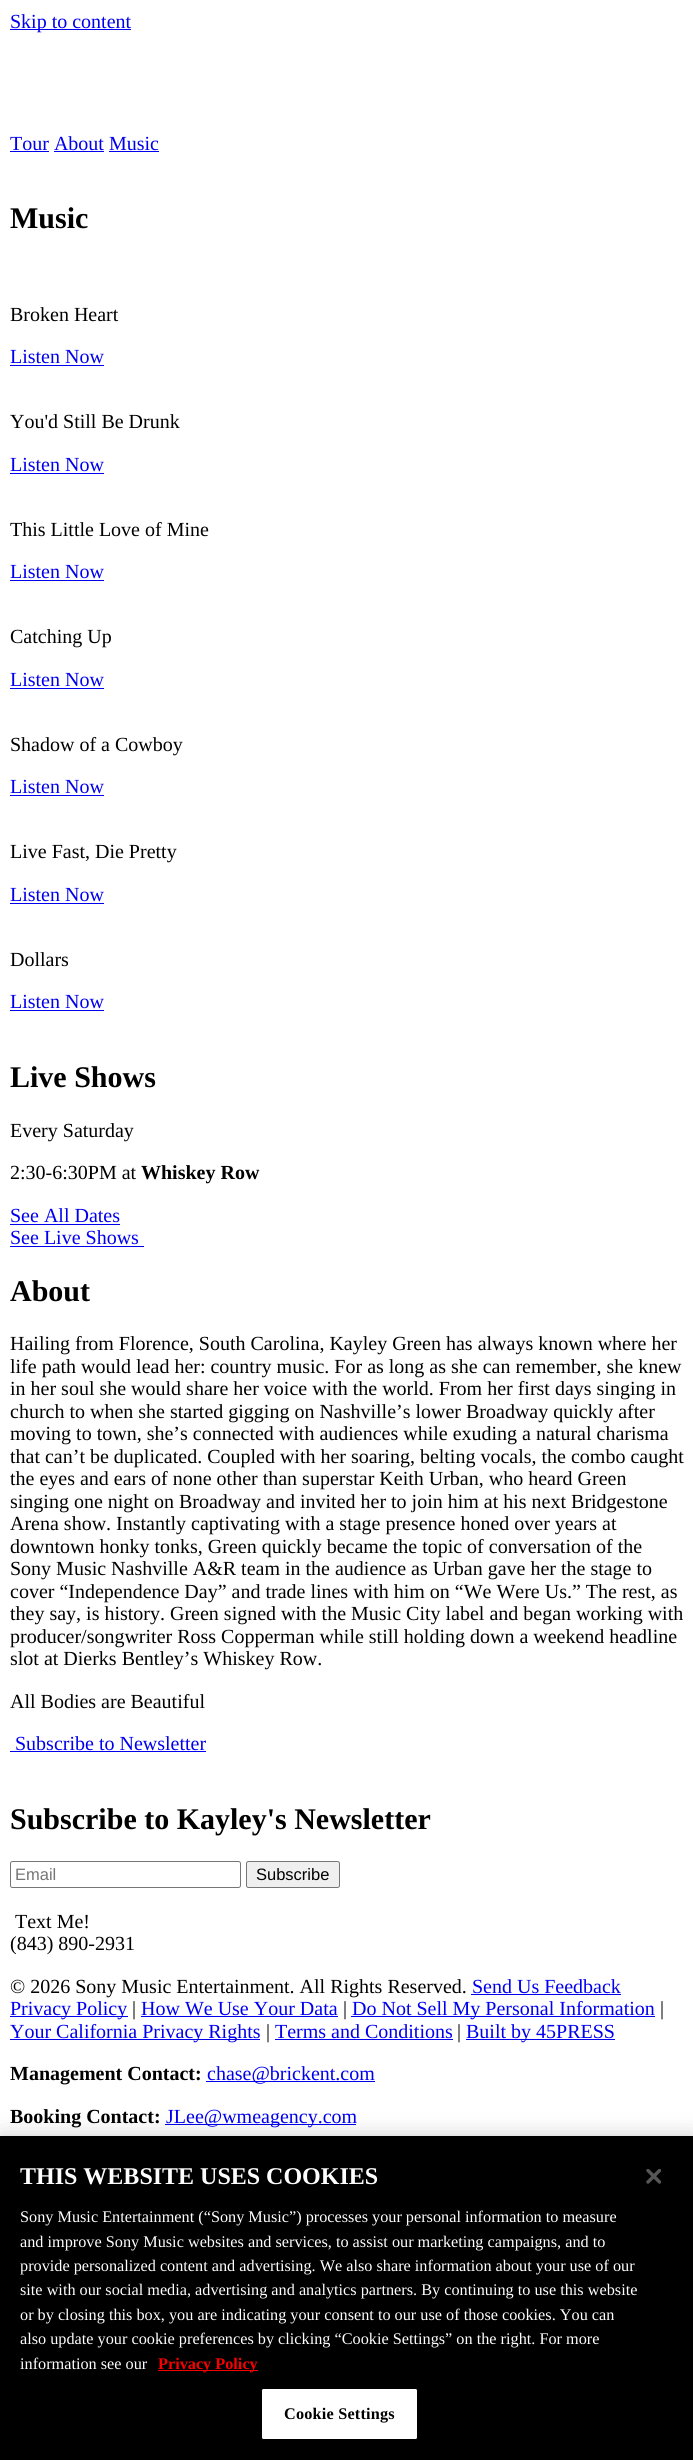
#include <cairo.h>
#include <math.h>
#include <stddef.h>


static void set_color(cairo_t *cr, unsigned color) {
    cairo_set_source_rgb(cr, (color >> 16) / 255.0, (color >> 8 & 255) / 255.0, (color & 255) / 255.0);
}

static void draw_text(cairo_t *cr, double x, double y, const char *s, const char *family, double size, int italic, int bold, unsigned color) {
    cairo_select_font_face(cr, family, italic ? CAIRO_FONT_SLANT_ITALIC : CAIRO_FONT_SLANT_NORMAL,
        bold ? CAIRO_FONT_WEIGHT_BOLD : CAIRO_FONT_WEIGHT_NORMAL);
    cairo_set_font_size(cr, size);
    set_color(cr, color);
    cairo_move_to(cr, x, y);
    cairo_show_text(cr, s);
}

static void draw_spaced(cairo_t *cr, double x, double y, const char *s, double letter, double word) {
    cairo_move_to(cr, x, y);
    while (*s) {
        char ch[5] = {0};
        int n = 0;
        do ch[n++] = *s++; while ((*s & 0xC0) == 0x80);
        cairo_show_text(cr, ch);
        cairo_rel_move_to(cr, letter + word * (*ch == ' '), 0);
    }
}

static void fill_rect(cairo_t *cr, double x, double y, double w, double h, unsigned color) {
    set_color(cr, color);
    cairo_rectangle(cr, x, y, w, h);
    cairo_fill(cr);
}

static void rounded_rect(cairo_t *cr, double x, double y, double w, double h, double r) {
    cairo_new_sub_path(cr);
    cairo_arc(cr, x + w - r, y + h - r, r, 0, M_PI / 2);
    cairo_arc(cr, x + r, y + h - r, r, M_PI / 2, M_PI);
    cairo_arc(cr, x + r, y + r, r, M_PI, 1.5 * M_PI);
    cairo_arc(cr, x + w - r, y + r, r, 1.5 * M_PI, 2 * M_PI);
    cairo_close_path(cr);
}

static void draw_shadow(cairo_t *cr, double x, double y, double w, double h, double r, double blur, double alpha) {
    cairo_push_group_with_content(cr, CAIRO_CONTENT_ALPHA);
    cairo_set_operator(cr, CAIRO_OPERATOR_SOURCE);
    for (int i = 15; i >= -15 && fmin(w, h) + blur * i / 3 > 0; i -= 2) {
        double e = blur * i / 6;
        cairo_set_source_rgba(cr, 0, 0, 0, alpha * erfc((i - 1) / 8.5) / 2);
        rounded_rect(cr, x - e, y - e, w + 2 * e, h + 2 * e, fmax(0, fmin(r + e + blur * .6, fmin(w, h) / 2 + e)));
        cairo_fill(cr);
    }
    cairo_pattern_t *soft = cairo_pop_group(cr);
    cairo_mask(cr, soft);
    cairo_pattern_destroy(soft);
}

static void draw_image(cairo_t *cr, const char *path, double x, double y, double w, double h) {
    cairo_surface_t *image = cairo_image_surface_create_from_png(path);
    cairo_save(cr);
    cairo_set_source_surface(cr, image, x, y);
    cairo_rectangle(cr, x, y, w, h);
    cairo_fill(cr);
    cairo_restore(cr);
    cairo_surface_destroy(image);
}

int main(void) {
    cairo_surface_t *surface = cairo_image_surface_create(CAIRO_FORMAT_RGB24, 693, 2460);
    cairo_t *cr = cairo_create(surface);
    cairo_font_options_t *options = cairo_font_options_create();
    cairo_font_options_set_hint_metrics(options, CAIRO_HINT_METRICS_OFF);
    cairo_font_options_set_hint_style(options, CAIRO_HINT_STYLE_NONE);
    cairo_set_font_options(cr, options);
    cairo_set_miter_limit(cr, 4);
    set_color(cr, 0xFFFFFF);
    cairo_paint(cr);
    fill_rect(cr, 10, 29, 121, 1, 0x0000EE);
    draw_text(cr, 10, 28, "Skip to content", "Liberation Serif", 20, 0, 0, 0x0000EE);
    draw_text(cr, 10, 150, "Tour About Music", "Liberation Serif", 20, 0, 0, 0x0000EE);
    fill_rect(cr, 10, 151, 39, 1, 0x0000EE);
    fill_rect(cr, 54, 151, 50, 1, 0x0000EE);
    fill_rect(cr, 109, 151, 50, 1, 0x0000EE);
    draw_text(cr, 10, 228, "Music", "Liberation Serif", 30, 0, 1, 0x000000);
    draw_text(cr, 10, 321, "Broken Heart", "Liberation Serif", 20, 0, 0, 0x000000);
    draw_text(cr, 10, 363, "Listen Now", "Liberation Serif", 20, 0, 0, 0x0000EE);
    fill_rect(cr, 10, 365, 94, 1, 0x0000EE);
    draw_text(cr, 10, 428, "You'd Still Be Drunk", "Liberation Serif", 20, 0, 0, 0x000000);
    draw_text(cr, 10, 471, "Listen Now", "Liberation Serif", 20, 0, 0, 0x0000EE);
    fill_rect(cr, 10, 473, 94, 1, 0x0000EE);
    draw_text(cr, 10, 536, "This Little Love of Mine", "Liberation Serif", 20, 0, 0, 0x000000);
    draw_text(cr, 10, 578, "Listen Now", "Liberation Serif", 20, 0, 0, 0x0000EE);
    fill_rect(cr, 10, 580, 94, 1, 0x0000EE);
    draw_text(cr, 10, 643, "Catching Up", "Liberation Serif", 20, 0, 0, 0x000000);
    draw_text(cr, 10, 686, "Listen Now", "Liberation Serif", 20, 0, 0, 0x0000EE);
    fill_rect(cr, 10, 688, 94, 1, 0x0000EE);
    draw_text(cr, 10, 751, "Shadow of a Cowboy", "Liberation Serif", 20, 0, 0, 0x000000);
    draw_text(cr, 10, 793, "Listen Now", "Liberation Serif", 20, 0, 0, 0x0000EE);
    fill_rect(cr, 10, 795, 94, 1, 0x0000EE);
    draw_text(cr, 10, 858, "Live Fast, Die Pretty", "Liberation Serif", 20, 0, 0, 0x000000);
    draw_text(cr, 10, 901, "Listen Now", "Liberation Serif", 20, 0, 0, 0x0000EE);
    fill_rect(cr, 10, 903, 94, 1, 0x0000EE);
    draw_text(cr, 10, 966, "Dollars", "Liberation Serif", 20, 0, 0, 0x000000);
    draw_text(cr, 10, 1008, "Listen Now", "Liberation Serif", 20, 0, 0, 0x0000EE);
    fill_rect(cr, 10, 1010, 94, 1, 0x0000EE);
    draw_text(cr, 10, 1087, "Live Shows", "Liberation Serif", 30, 0, 1, 0x000000);
    draw_text(cr, 10, 1137, "Every Saturday", "Liberation Serif", 20, 0, 0, 0x000000);
    draw_text(cr, 10, 1179, "2:30-6:30PM at", "Liberation Serif", 20, 0, 0, 0x000000);
    draw_text(cr, 141, 1179, "Whiskey Row", "Liberation Serif", 20, 0, 1, 0x000000);
    draw_text(cr, 10, 1222, "See All Dates", "Liberation Serif", 20, 0, 0, 0x0000EE);
    fill_rect(cr, 10, 1224, 110, 1, 0x0000EE);
    draw_text(cr, 10, 1244, "See Live Shows", "Liberation Serif", 20, 0, 0, 0x0000EE);
    fill_rect(cr, 10, 1246, 134, 1, 0x0000EE);
    draw_text(cr, 10, 1301, "About", "Liberation Serif", 30, 0, 1, 0x000000);
    draw_text(cr, 10, 1350, "Hailing from Florence, South Carolina, Kayley Green has always known where her", "Liberation Serif", 20, 0, 0, 0x000000);
    draw_text(cr, 10, 1373, "life path would lead her: country music. For as long as she can remember, she knew", "Liberation Serif", 20, 0, 0, 0x000000);
    draw_text(cr, 10, 1395, "in her soul she would share her voice with the world. From her first days singing in", "Liberation Serif", 20, 0, 0, 0x000000);
    draw_text(cr, 10, 1418, "church to when she started gigging on Nashville’s lower Broadway quickly after", "Liberation Serif", 20, 0, 0, 0x000000);
    draw_text(cr, 10, 1440, "moving to town, she’s connected with audiences while exuding a natural charisma", "Liberation Serif", 20, 0, 0, 0x000000);
    draw_text(cr, 10, 1463, "that can’t be duplicated. Coupled with her soaring, belting vocals, the combo caught", "Liberation Serif", 20, 0, 0, 0x000000);
    draw_text(cr, 10, 1485, "the eyes and ears of none other than superstar Keith Urban, who heard Green", "Liberation Serif", 20, 0, 0, 0x000000);
    draw_text(cr, 10, 1508, "singing one night on Broadway and invited her to join him at his next Bridgestone", "Liberation Serif", 20, 0, 0, 0x000000);
    draw_text(cr, 10, 1530, "Arena show. Instantly captivating with a stage presence honed over years at", "Liberation Serif", 20, 0, 0, 0x000000);
    draw_text(cr, 10, 1553, "downtown honky tonks, Green quickly became the topic of conversation of the", "Liberation Serif", 20, 0, 0, 0x000000);
    draw_text(cr, 10, 1575, "Sony Music Nashville A&R team in the audience as Urban gave her the stage to", "Liberation Serif", 20, 0, 0, 0x000000);
    draw_text(cr, 10, 1598, "cover “Independence Day” and trade lines with him on “We Were Us.” The rest, as", "Liberation Serif", 20, 0, 0, 0x000000);
    draw_text(cr, 10, 1620, "they say, is history. Green signed with the Music City label and began working with", "Liberation Serif", 20, 0, 0, 0x000000);
    draw_text(cr, 10, 1643, "producer/songwriter Ross Copperman while still holding down a weekend headline", "Liberation Serif", 20, 0, 0, 0x000000);
    draw_text(cr, 10, 1665, "slot at Dierks Bentley’s Whiskey Row.", "Liberation Serif", 20, 0, 0, 0x000000);
    draw_text(cr, 10, 1708, "All Bodies are Beautiful", "Liberation Serif", 20, 0, 0, 0x000000);
    draw_text(cr, 15, 1750, "Subscribe to Newsletter", "Liberation Serif", 20, 0, 0, 0x0000EE);
    fill_rect(cr, 10, 1751, 196, 1, 0x0000EE);
    draw_text(cr, 10, 1829, "Subscribe to Kayley's Newsletter", "Liberation Serif", 30, 0, 1, 0x000000);
    rounded_rect(cr, 10.5, 1861.5, 230, 26, 2);
    set_color(cr, 0x767676);
    cairo_set_line_width(cr, 1);
    cairo_stroke(cr);
    draw_text(cr, 15, 1880, "Email", "Liberation Sans", 16.5, 0, 0, 0x757575);
    set_color(cr, 0xEFEFEF);
    rounded_rect(cr, 246.5, 1861.5, 93, 26, 2);
    cairo_fill_preserve(cr);
    set_color(cr, 0x767676);
    cairo_stroke(cr);
    draw_text(cr, 256, 1880, "Subscribe", "Liberation Sans", 16.5, 0, 0, 0x000000);
    draw_text(cr, 15, 1928, "Text Me!", "Liberation Serif", 20, 0, 0, 0x000000);
    draw_text(cr, 10, 1950, "(843) 890-2931", "Liberation Serif", 20, 0, 0, 0x000000);
    draw_text(cr, 10, 1993, "© 2026 Sony Music Entertainment. All Rights Reserved.", "Liberation Serif", 20, 0, 0, 0x000000);
    draw_text(cr, 472, 1993, "Send Us Feedback", "Liberation Serif", 20, 0, 0, 0x0000EE);
    fill_rect(cr, 471, 1994, 150, 1, 0x0000EE);
    fill_rect(cr, 10, 2016, 118, 1, 0x0000EE);
    draw_text(cr, 10, 2015, "Privacy Policy", "Liberation Serif", 20, 0, 0, 0x0000EE);
    draw_text(cr, 132, 2015, "|", "Liberation Serif", 20, 0, 0, 0x000000);
    draw_text(cr, 141, 2015, "How We Use Your Data", "Liberation Serif", 20, 0, 0, 0x0000EE);
    fill_rect(cr, 141, 2016, 197, 1, 0x0000EE);
    draw_text(cr, 343, 2015, "|", "Liberation Serif", 20, 0, 0, 0x000000);
    fill_rect(cr, 351, 2016, 304, 1, 0x0000EE);
    draw_text(cr, 352, 2015, "Do Not Sell My Personal Information", "Liberation Serif", 20, 0, 0, 0x0000EE);
    draw_text(cr, 660, 2015, "|", "Liberation Serif", 20, 0, 0, 0x000000);
    fill_rect(cr, 10, 2039, 250, 1, 0x0000EE);
    draw_text(cr, 10, 2038, "Your California Privacy Rights", "Liberation Serif", 20, 0, 0, 0x0000EE);
    draw_text(cr, 266, 2038, "|", "Liberation Serif", 20, 0, 0, 0x000000);
    draw_text(cr, 275, 2038, "Terms and Conditions", "Liberation Serif", 20, 0, 0, 0x0000EE);
    fill_rect(cr, 275, 2039, 178, 1, 0x0000EE);
    draw_text(cr, 457, 2038, "|", "Liberation Serif", 20, 0, 0, 0x000000);
    fill_rect(cr, 466, 2039, 149, 1, 0x0000EE);
    draw_text(cr, 466, 2038, "Built by 45PRESS", "Liberation Serif", 20, 0, 0, 0x0000EE);
    draw_text(cr, 10, 2080, "Management Contact:", "Liberation Serif", 20, 0, 1, 0x000000);
    fill_rect(cr, 206, 2081, 169, 1, 0x0000EE);
    draw_text(cr, 207, 2080, "chase@brickent.com", "Liberation Serif", 20, 0, 0, 0x0000EE);
    draw_text(cr, 10, 2123, "Booking Contact:", "Liberation Serif", 20, 0, 1, 0x000000);
    fill_rect(cr, 165, 2124, 191, 1, 0x0000EE);
    draw_text(cr, 166, 2123, "JLee@wmeagency.com", "Liberation Serif", 20, 0, 0, 0x0000EE);
    set_color(cr, 0x000000);
    draw_shadow(cr, 0, 2136, 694, 324, 0, 11, 0.2);
    fill_rect(cr, 0, 2136, 693, 324, 0x000000);
    draw_text(cr, 20, 2184, "THIS WEBSITE USES COOKIES", "Liberation Serif", 24, 0, 1, 0xFFFFFF);
    draw_text(cr, 20, 2222, "Sony Music Entertainment (“Sony Music”) processes your personal information to measure", "Liberation Serif", 16.25, 0, 0, 0xFFFFFF);
    draw_text(cr, 20, 2247, "and improve Sony Music websites and services, to assist our marketing campaigns, and to", "Liberation Serif", 16.25, 0, 0, 0xFFFFFF);
    draw_text(cr, 20, 2271, "provide personalized content and advertising. We also share information about your use of our", "Liberation Serif", 16.25, 0, 0, 0xFFFFFF);
    draw_text(cr, 20, 2295, "site with our social media, advertising and analytics partners. By continuing to use this website", "Liberation Serif", 16.25, 0, 0, 0xFFFFFF);
    draw_text(cr, 20, 2320, "or by closing this box, you are indicating your consent to our use of those cookies. You can", "Liberation Serif", 16.25, 0, 0, 0xFFFFFF);
    draw_text(cr, 20, 2344, "also update your cookie preferences by clicking “Cookie Settings” on the right. For more", "Liberation Serif", 16.25, 0, 0, 0xFFFFFF);
    draw_text(cr, 20, 2369, "information see our", "Liberation Serif", 16.25, 0, 0, 0xFFFFFF);
    fill_rect(cr, 158, 2370, 100, 1, 0xF90000);
    draw_text(cr, 158, 2369, "Privacy Policy", "Liberation Serif", 16.25, 0, 1, 0xF90000);
    set_color(cr, 0xFFFFFF);
    rounded_rect(cr, 261.5, 2388.5, 156, 51, 2);
    cairo_fill_preserve(cr);
    set_color(cr, 0x000000);
    cairo_stroke(cr);
    draw_spaced(cr, 284, 2419, "Cookie Settings", 0.2, 0);
    draw_image(cr, "assets/img1.png", 646, 2169, 15, 15);
    cairo_surface_write_to_png(surface, "output.png");
    cairo_font_options_destroy(options);
    cairo_destroy(cr);
    cairo_surface_destroy(surface);
    return 0;
}
